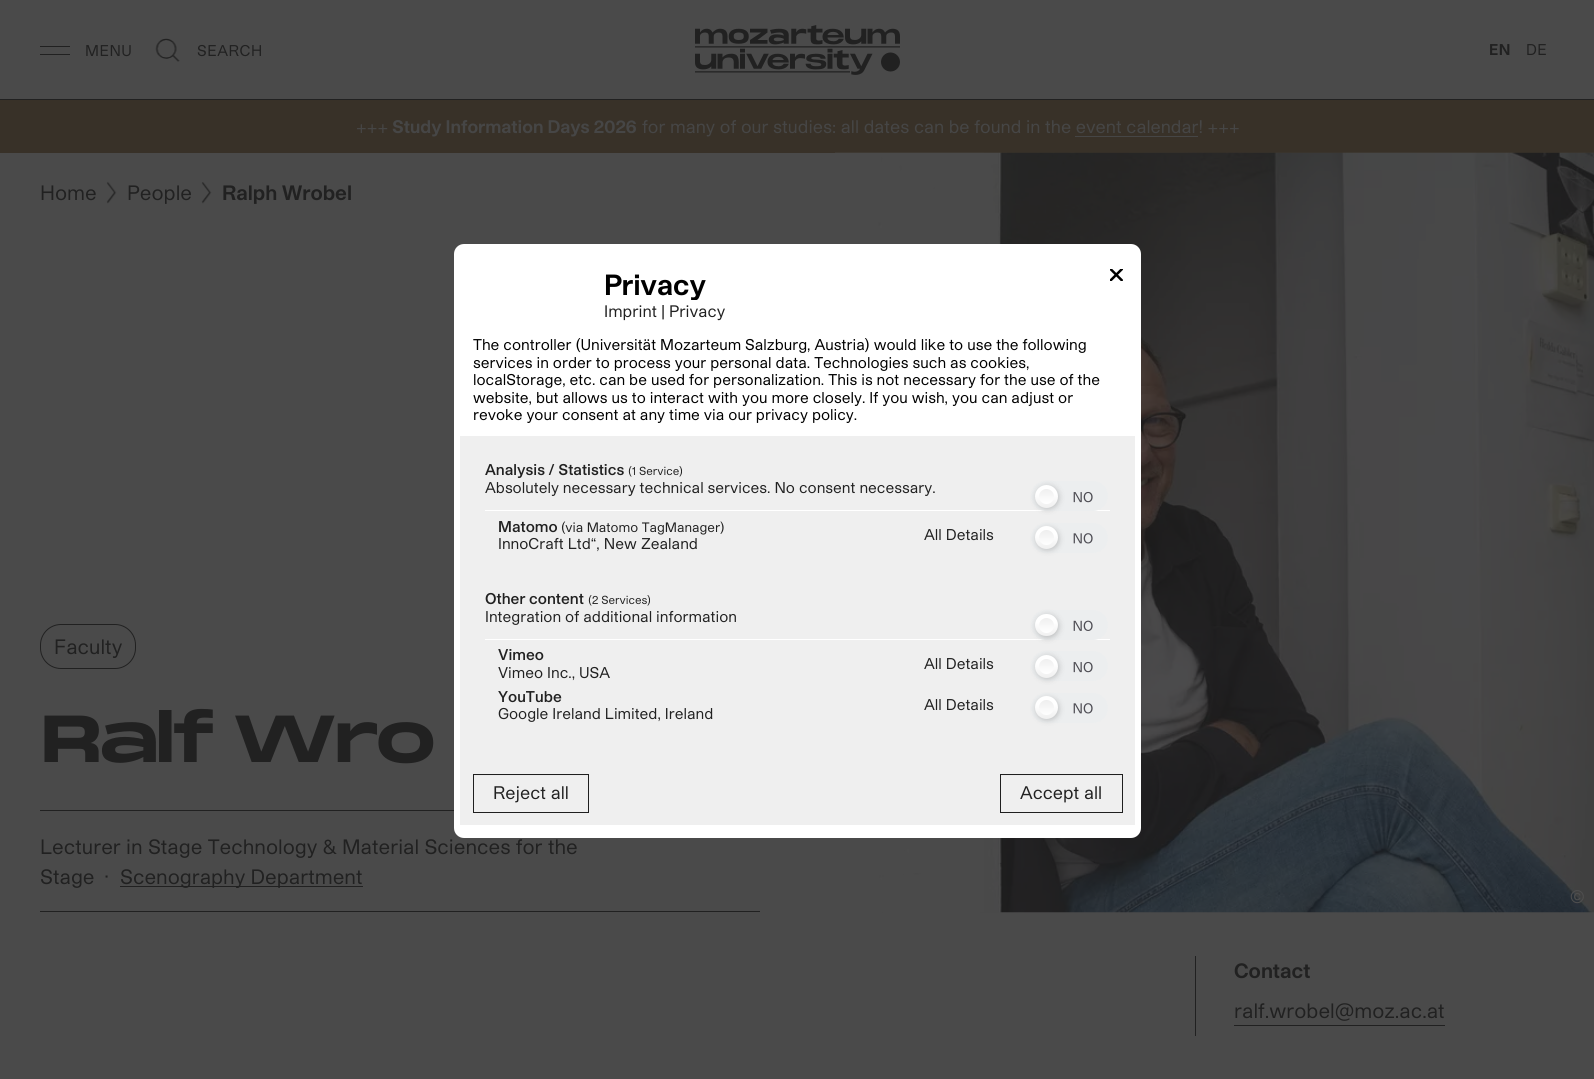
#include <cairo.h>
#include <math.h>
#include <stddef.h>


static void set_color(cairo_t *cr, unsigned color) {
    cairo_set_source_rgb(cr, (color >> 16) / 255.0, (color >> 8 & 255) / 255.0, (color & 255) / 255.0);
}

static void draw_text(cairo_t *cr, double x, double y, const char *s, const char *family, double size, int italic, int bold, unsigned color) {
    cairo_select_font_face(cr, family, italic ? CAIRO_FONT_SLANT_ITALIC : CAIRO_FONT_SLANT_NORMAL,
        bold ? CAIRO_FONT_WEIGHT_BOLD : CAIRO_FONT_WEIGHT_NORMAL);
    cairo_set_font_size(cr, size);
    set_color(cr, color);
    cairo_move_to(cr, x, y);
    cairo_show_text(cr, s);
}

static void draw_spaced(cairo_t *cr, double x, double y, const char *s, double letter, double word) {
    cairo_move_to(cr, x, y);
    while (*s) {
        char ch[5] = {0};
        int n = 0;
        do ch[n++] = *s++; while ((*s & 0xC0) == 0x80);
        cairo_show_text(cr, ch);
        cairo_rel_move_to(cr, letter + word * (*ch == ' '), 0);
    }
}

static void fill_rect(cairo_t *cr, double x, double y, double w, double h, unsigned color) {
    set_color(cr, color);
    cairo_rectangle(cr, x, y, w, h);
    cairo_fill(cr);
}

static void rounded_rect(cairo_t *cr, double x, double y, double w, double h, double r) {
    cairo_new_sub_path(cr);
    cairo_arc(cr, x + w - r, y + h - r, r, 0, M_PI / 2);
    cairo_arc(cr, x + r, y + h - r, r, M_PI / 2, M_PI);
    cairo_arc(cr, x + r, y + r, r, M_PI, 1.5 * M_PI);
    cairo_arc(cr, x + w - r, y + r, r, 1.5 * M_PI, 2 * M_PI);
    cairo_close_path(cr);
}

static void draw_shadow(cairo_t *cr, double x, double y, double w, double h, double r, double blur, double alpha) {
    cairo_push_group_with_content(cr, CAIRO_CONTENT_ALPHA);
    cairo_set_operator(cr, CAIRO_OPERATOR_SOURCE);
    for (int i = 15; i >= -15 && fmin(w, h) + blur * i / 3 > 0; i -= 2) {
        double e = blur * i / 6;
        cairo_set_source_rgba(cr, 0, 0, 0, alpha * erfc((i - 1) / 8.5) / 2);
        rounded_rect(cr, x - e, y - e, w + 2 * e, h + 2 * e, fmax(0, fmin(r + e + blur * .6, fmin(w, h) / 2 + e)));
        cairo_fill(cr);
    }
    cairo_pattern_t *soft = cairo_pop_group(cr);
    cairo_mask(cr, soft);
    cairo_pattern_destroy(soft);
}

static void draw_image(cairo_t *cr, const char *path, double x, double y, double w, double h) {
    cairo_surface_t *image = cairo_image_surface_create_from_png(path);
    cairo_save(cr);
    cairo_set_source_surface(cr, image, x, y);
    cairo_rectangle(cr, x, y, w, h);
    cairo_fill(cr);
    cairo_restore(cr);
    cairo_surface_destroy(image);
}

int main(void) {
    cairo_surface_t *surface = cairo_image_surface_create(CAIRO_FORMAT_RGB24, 1594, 1079);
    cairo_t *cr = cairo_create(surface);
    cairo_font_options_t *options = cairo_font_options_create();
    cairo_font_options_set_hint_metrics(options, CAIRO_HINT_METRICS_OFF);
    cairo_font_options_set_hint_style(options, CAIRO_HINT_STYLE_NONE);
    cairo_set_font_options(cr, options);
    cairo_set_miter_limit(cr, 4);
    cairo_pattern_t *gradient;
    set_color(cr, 0x4A4A4A);
    cairo_paint(cr);
    fill_rect(cr, 0, 99, 1594, 1, 0x212121);
    fill_rect(cr, 40, 46, 30, 1, 0x212121);
    fill_rect(cr, 40, 54, 30, 1, 0x212121);
    cairo_select_font_face(cr, "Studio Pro", CAIRO_FONT_SLANT_NORMAL, CAIRO_FONT_WEIGHT_NORMAL);
    cairo_set_font_size(cr, 15);
    draw_spaced(cr, 85, 56, "MENU", 0.5, 0);
    draw_image(cr, "assets/img1.png", 155, 38, 25, 24);
    draw_spaced(cr, 197, 56, "SEARCH", 0.5, 0);
    draw_image(cr, "assets/img2.png", 695, 25, 205, 50);
    cairo_select_font_face(cr, "Studio Pro", CAIRO_FONT_SLANT_NORMAL, CAIRO_FONT_WEIGHT_BOLD);
    draw_spaced(cr, 1489, 55, "EN", 0.5, 0);
    cairo_select_font_face(cr, "Studio Pro", CAIRO_FONT_SLANT_NORMAL, CAIRO_FONT_WEIGHT_NORMAL);
    draw_spaced(cr, 1526, 55, "DE", 0.5, 0);
    fill_rect(cr, 0, 100, 1594, 53, 0x383128);
    draw_text(cr, 356, 133, "+++", "Studio Pro", 17.5, 0, 0, 0x464646);
    draw_text(cr, 392, 133, "Study Information Days 2026", "Studio Pro", 17.5, 0, 1, 0x464646);
    draw_text(cr, 642, 133, "for many of our studies: all dates can be found in the event calendar! +++", "Studio Pro", 17.5, 0, 0, 0x464646);
    fill_rect(cr, 1075, 136, 123, 1, 0x464646);
    draw_text(cr, 40, 200, "Home", "Studio Pro", 20, 0, 0, 0x212121);
    draw_image(cr, "assets/img3.png", 106, 181, 11, 23);
    draw_text(cr, 127, 200, "People", "Studio Pro", 20, 0, 0, 0x212121);
    draw_image(cr, "assets/img4.png", 201, 182, 11, 22);
    draw_text(cr, 222, 200, "Ralph Wrobel", "Studio Pro", 20, 0, 1, 0x212121);
    rounded_rect(cr, 40.5, 624.5, 95, 44, 20.5);
    cairo_set_line_width(cr, 1);
    cairo_stroke(cr);
    draw_text(cr, 54, 654, "Faculty", "Studio Pro", 20, 0, 0, 0x212121);
    cairo_select_font_face(cr, "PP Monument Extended", CAIRO_FONT_SLANT_NORMAL, CAIRO_FONT_WEIGHT_BOLD);
    cairo_set_font_size(cr, 65);
    draw_spaced(cr, 40, 762, "Ralf Wro", -5.25, 0);
    fill_rect(cr, 40, 810, 414, 1, 0x212121);
    fill_rect(cr, 40, 911, 720, 1, 0x212121);
    draw_text(cr, 40, 854, "Lecturer in Stage Technology & Material Sciences for the", "Studio Pro", 20, 0, 0, 0x212121);
    draw_text(cr, 40, 884, "Stage", "Studio Pro", 20, 0, 0, 0x212121);
    draw_text(cr, 104, 884, "⋅", "Studio Pro", 20, 0, 0, 0x212121);
    fill_rect(cr, 120, 886, 243, 1, 0x212121);
    draw_text(cr, 120, 884, "Scenography Department", "Studio Pro", 20, 0, 0, 0x212121);
    draw_image(cr, "assets/img5.png", 835, 152, 759, 1);
    draw_image(cr, "assets/img6.png", 835, 152, 759, 761);
    cairo_select_font_face(cr, "Studio Pro SemiBold", CAIRO_FONT_SLANT_NORMAL, CAIRO_FONT_WEIGHT_NORMAL);
    cairo_set_font_size(cr, 17.5);
    set_color(cr, 0x4E4E4E);
    draw_spaced(cr, 1570, 903, "©", 1, 0);
    fill_rect(cr, 1195, 956, 1, 80, 0x212121);
    draw_text(cr, 1234, 978, "Contact", "Studio Pro", 20, 0, 1, 0x212121);
    fill_rect(cr, 1234, 1025, 211, 1, 0x212121);
    draw_text(cr, 1234, 1018, "ralf.wrobel@moz.ac.at", "Studio Pro", 20, 0, 0, 0x212121);
    set_color(cr, 0xFFFFFF);
    rounded_rect(cr, 454, 244, 687, 594, 10);
    cairo_fill(cr);
    cairo_save(cr);
    cairo_rectangle(cr, 604, 269, 102, 31);
    cairo_clip(cr);
    draw_text(cr, 604, 295, "Privacy", "Studio Pro", 28, 0, 1, 0x000000);
    cairo_restore(cr);
    cairo_save(cr);
    cairo_rectangle(cr, 1110, 269, 13, 12);
    cairo_clip(cr);
    cairo_new_path(cr);
    cairo_move_to(cr, 1110, 268.5);
    cairo_line_to(cr, 1122.5, 281);
    cairo_move_to(cr, 1110, 281);
    cairo_line_to(cr, 1122.5, 268.5);
    set_color(cr, 0x000000);
    cairo_set_line_width(cr, 2.5);
    cairo_stroke(cr);
    cairo_restore(cr);
    draw_text(cr, 604, 317, "Imprint", "Studio Pro", 16, 0, 0, 0x212121);
    draw_text(cr, 661, 317, "|", "Studio Pro", 16, 0, 0, 0x212121);
    draw_text(cr, 669, 317, "Privacy", "Studio Pro", 16, 0, 0, 0x212121);
    draw_text(cr, 473, 350, "The controller (Universität Mozarteum Salzburg, Austria) would like to use the following", "Studio Pro", 15, 0, 0, 0x000000);
    draw_text(cr, 473, 368, "services in order to process your personal data. Technologies such as cookies,", "Studio Pro", 15, 0, 0, 0x000000);
    draw_text(cr, 473, 385, "localStorage, etc. can be used for personalization. This is not necessary for the use of the", "Studio Pro", 15, 0, 0, 0x000000);
    draw_text(cr, 473, 403, "website, but allows us to interact with you more closely. If you wish, you can adjust or", "Studio Pro", 15, 0, 0, 0x000000);
    draw_text(cr, 473, 420, "revoke your consent at any time via our privacy policy.", "Studio Pro", 15, 0, 0, 0x000000);
    fill_rect(cr, 460, 436, 675, 389, 0xEFEFEF);
    draw_text(cr, 485, 475, "Analysis / Statistics", "Studio Pro SemiBold", 15, 0, 0, 0x212121);
    draw_text(cr, 628, 475, "(1 Service)", "Studio Pro", 11.25, 0, 0, 0x212121);
    draw_text(cr, 485, 493, "Absolutely necessary technical services. No consent necessary.", "Studio Pro", 15, 0, 0, 0x212121);
    fill_rect(cr, 485, 510, 625, 1, 0xFFFFFF);
    set_color(cr, 0xECEEEF);
    rounded_rect(cr, 1031, 481, 77, 30, 15);
    cairo_fill(cr);
    set_color(cr, 0x000000);
    draw_shadow(cr, 1036, 486, 23, 23, 11.5, 3, 0.2);
    gradient = cairo_pattern_create_linear(1046, 485, 1046, 507);
    cairo_pattern_add_color_stop_rgba(gradient, 0.4, 1, 1, 1, 1);
    cairo_pattern_add_color_stop_rgba(gradient, 1, 0.941, 0.941, 0.941, 1);
    cairo_set_source(cr, gradient);
    cairo_pattern_destroy(gradient);
    cairo_arc(cr, 1046.5, 496.5, 11.5, 0, 2 * M_PI);
    cairo_fill(cr);
    gradient = cairo_pattern_create_linear(1046, 488, 1046, 503);
    cairo_pattern_add_color_stop_rgba(gradient, 0, 0.933, 0.933, 0.933, 1);
    cairo_pattern_add_color_stop_rgba(gradient, 1, 1, 1, 1, 1);
    cairo_set_source(cr, gradient);
    cairo_pattern_destroy(gradient);
    cairo_arc(cr, 1046.5, 496.5, 7.5, 0, 2 * M_PI);
    cairo_fill(cr);
    draw_image(cr, "assets/img7.png", 1073, 491, 20, 12);
    draw_text(cr, 498, 532, "Matomo", "Studio Pro SemiBold", 15, 0, 0, 0x212121);
    draw_text(cr, 561, 532, "(via Matomo TagManager)", "Studio Pro", 13.1, 0, 0, 0x212121);
    draw_text(cr, 498, 549, "InnoCraft Ltd“, New Zealand", "Studio Pro", 15, 0, 0, 0x212121);
    draw_text(cr, 924, 540, "All Details", "Studio Pro", 15, 0, 0, 0x212121);
    set_color(cr, 0xECEEEF);
    rounded_rect(cr, 1031, 523, 77, 30, 15);
    cairo_fill(cr);
    set_color(cr, 0x000000);
    draw_shadow(cr, 1036, 528, 23, 22, 11, 3, 0.2);
    gradient = cairo_pattern_create_linear(1046, 526, 1046, 548);
    cairo_pattern_add_color_stop_rgba(gradient, 0.4, 1, 1, 1, 1);
    cairo_pattern_add_color_stop_rgba(gradient, 1, 0.941, 0.941, 0.941, 1);
    cairo_set_source(cr, gradient);
    cairo_pattern_destroy(gradient);
    cairo_arc(cr, 1046.5, 537.5, 11.5, 0, 2 * M_PI);
    cairo_fill(cr);
    gradient = cairo_pattern_create_linear(1046, 530, 1046, 545);
    cairo_pattern_add_color_stop_rgba(gradient, 0, 0.933, 0.933, 0.933, 1);
    cairo_pattern_add_color_stop_rgba(gradient, 1, 1, 1, 1, 1);
    cairo_set_source(cr, gradient);
    cairo_pattern_destroy(gradient);
    cairo_arc(cr, 1046.5, 537.5, 7.5, 0, 2 * M_PI);
    cairo_fill(cr);
    draw_image(cr, "assets/img8.png", 1073, 533, 20, 11);
    draw_text(cr, 485, 604, "Other content", "Studio Pro SemiBold", 15, 0, 0, 0x212121);
    draw_text(cr, 588, 604, "(2 Services)", "Studio Pro", 11.25, 0, 0, 0x212121);
    draw_text(cr, 485, 622, "Integration of additional information", "Studio Pro", 15, 0, 0, 0x212121);
    fill_rect(cr, 485, 639, 625, 1, 0xFFFFFF);
    set_color(cr, 0xECEEEF);
    rounded_rect(cr, 1031, 610, 77, 30, 15);
    cairo_fill(cr);
    set_color(cr, 0x000000);
    draw_shadow(cr, 1036, 615, 23, 23, 11.5, 3, 0.2);
    gradient = cairo_pattern_create_linear(1046, 613, 1046, 636);
    cairo_pattern_add_color_stop_rgba(gradient, 0.4, 1, 1, 1, 1);
    cairo_pattern_add_color_stop_rgba(gradient, 1, 0.941, 0.941, 0.941, 1);
    cairo_set_source(cr, gradient);
    cairo_pattern_destroy(gradient);
    rounded_rect(cr, 1035, 614, 23, 22, 11);
    cairo_fill(cr);
    gradient = cairo_pattern_create_linear(1046, 617, 1046, 632);
    cairo_pattern_add_color_stop_rgba(gradient, 0, 0.933, 0.933, 0.933, 1);
    cairo_pattern_add_color_stop_rgba(gradient, 1, 1, 1, 1, 1);
    cairo_set_source(cr, gradient);
    cairo_pattern_destroy(gradient);
    cairo_arc(cr, 1046.5, 625.5, 7.5, 0, 2 * M_PI);
    cairo_fill(cr);
    draw_image(cr, "assets/img9.png", 1073, 620, 20, 11);
    draw_text(cr, 498, 660, "Vimeo", "Studio Pro SemiBold", 15, 0, 0, 0x212121);
    draw_text(cr, 498, 678, "Vimeo Inc., USA", "Studio Pro", 15, 0, 0, 0x212121);
    draw_text(cr, 924, 669, "All Details", "Studio Pro", 15, 0, 0, 0x212121);
    set_color(cr, 0xECEEEF);
    rounded_rect(cr, 1031, 651, 77, 30, 15);
    cairo_fill(cr);
    set_color(cr, 0x000000);
    draw_shadow(cr, 1036, 656, 23, 23, 11.5, 3, 0.2);
    gradient = cairo_pattern_create_linear(1046, 655, 1046, 677);
    cairo_pattern_add_color_stop_rgba(gradient, 0.4, 1, 1, 1, 1);
    cairo_pattern_add_color_stop_rgba(gradient, 1, 0.941, 0.941, 0.941, 1);
    cairo_set_source(cr, gradient);
    cairo_pattern_destroy(gradient);
    cairo_arc(cr, 1046.5, 666.5, 11.5, 0, 2 * M_PI);
    cairo_fill(cr);
    gradient = cairo_pattern_create_linear(1046, 658, 1046, 673);
    cairo_pattern_add_color_stop_rgba(gradient, 0, 0.933, 0.933, 0.933, 1);
    cairo_pattern_add_color_stop_rgba(gradient, 1, 1, 1, 1, 1);
    cairo_set_source(cr, gradient);
    cairo_pattern_destroy(gradient);
    cairo_arc(cr, 1046.5, 666.5, 7.5, 0, 2 * M_PI);
    cairo_fill(cr);
    draw_image(cr, "assets/img7.png", 1073, 661, 20, 12);
    draw_text(cr, 498, 702, "YouTube", "Studio Pro SemiBold", 15, 0, 0, 0x212121);
    draw_text(cr, 498, 719, "Google Ireland Limited, Ireland", "Studio Pro", 15, 0, 0, 0x212121);
    draw_text(cr, 924, 710, "All Details", "Studio Pro", 15, 0, 0, 0x212121);
    set_color(cr, 0xECEEEF);
    rounded_rect(cr, 1031, 693, 77, 30, 15);
    cairo_fill(cr);
    set_color(cr, 0x000000);
    draw_shadow(cr, 1036, 698, 23, 22, 11, 3, 0.2);
    gradient = cairo_pattern_create_linear(1046, 696, 1046, 718);
    cairo_pattern_add_color_stop_rgba(gradient, 0.4, 1, 1, 1, 1);
    cairo_pattern_add_color_stop_rgba(gradient, 1, 0.941, 0.941, 0.941, 1);
    cairo_set_source(cr, gradient);
    cairo_pattern_destroy(gradient);
    cairo_arc(cr, 1046.5, 707.5, 11.5, 0, 2 * M_PI);
    cairo_fill(cr);
    gradient = cairo_pattern_create_linear(1046, 700, 1046, 715);
    cairo_pattern_add_color_stop_rgba(gradient, 0, 0.933, 0.933, 0.933, 1);
    cairo_pattern_add_color_stop_rgba(gradient, 1, 1, 1, 1, 1);
    cairo_set_source(cr, gradient);
    cairo_pattern_destroy(gradient);
    cairo_arc(cr, 1046.5, 707.5, 7.5, 0, 2 * M_PI);
    cairo_fill(cr);
    draw_image(cr, "assets/img8.png", 1073, 703, 20, 11);
    fill_rect(cr, 474, 775, 114, 1, 0xEAEAEA);
    cairo_rectangle(cr, 473.5, 774.5, 115, 38);
    set_color(cr, 0x1F1F1F);
    cairo_stroke(cr);
    draw_text(cr, 493, 799, "Reject all", "Studio Pro", 17.5, 0, 0, 0x212121);
    fill_rect(cr, 1001, 775, 120, 1, 0xEAEAEA);
    cairo_rectangle(cr, 1000.5, 774.5, 122, 38);
    set_color(cr, 0x1F1F1F);
    cairo_stroke(cr);
    draw_text(cr, 1020, 799, "Accept all", "Studio Pro", 17.5, 0, 0, 0x212121);
    cairo_surface_write_to_png(surface, "output.png");
    cairo_font_options_destroy(options);
    cairo_destroy(cr);
    cairo_surface_destroy(surface);
    return 0;
}
